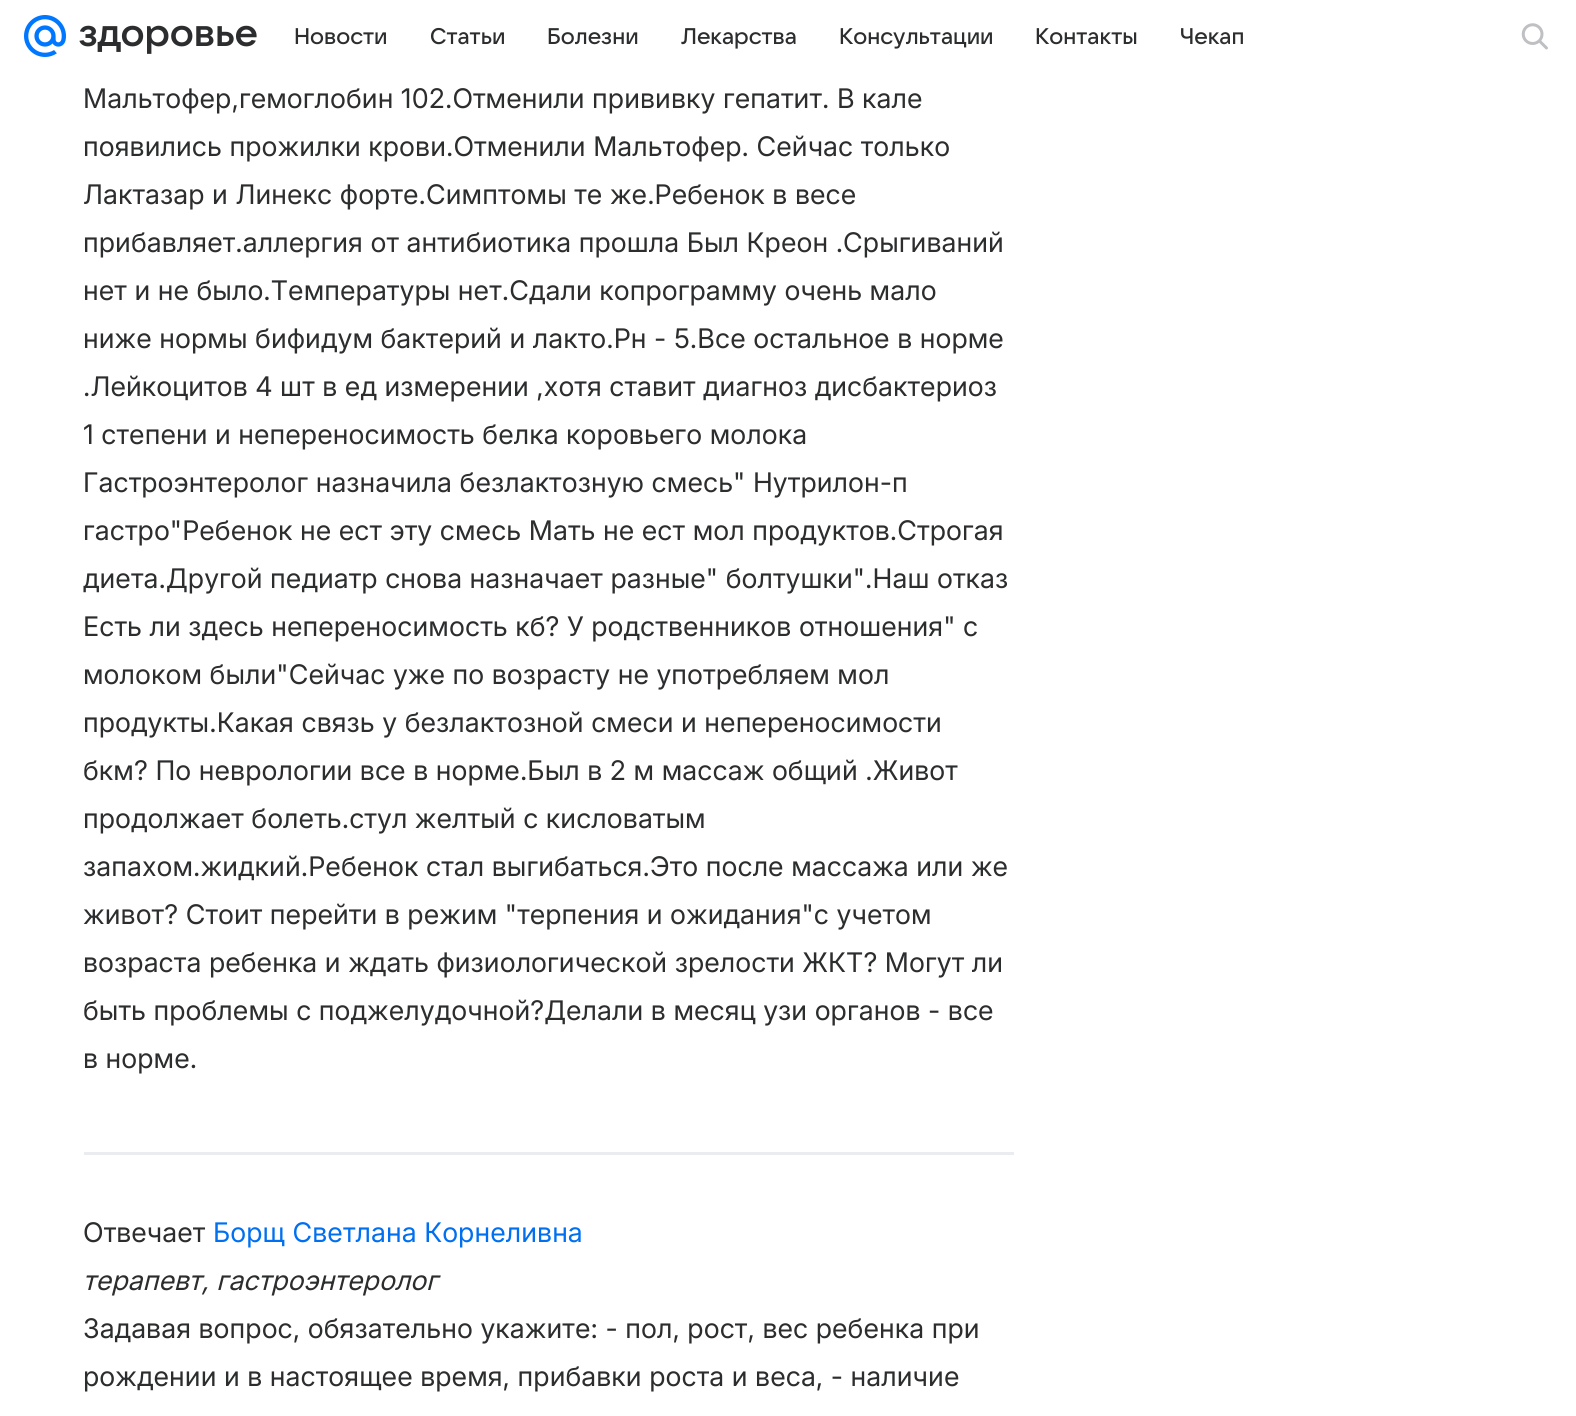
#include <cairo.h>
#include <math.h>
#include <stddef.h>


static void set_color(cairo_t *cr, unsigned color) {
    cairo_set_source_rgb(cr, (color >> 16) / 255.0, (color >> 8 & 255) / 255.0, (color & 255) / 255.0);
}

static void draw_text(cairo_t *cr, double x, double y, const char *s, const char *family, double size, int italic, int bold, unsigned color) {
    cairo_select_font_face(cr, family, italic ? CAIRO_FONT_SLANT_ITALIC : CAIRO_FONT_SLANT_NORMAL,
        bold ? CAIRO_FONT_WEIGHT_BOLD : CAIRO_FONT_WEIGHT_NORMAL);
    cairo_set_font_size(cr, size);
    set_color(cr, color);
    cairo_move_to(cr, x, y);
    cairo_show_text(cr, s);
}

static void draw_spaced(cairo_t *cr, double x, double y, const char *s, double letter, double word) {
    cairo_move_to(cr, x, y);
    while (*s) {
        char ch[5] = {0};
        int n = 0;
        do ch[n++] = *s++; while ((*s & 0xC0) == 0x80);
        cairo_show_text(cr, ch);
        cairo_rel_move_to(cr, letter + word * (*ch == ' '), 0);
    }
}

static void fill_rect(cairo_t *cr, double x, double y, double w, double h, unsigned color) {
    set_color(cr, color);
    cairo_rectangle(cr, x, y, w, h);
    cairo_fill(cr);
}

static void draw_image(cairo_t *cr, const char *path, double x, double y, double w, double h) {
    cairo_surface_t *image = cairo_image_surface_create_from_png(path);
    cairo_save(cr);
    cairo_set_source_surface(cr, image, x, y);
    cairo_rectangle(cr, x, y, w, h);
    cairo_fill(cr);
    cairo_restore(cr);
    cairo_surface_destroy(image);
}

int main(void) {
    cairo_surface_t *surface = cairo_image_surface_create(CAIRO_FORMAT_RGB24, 1576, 1416);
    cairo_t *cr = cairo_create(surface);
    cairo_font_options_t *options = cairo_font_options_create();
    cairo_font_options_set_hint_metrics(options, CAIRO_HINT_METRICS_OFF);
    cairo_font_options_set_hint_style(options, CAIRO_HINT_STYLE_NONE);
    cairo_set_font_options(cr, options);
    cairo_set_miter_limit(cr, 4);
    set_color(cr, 0xFFFFFF);
    cairo_paint(cr);
    draw_image(cr, "assets/img1.png", 24, 15, 42, 42);
    draw_image(cr, "assets/img2.png", 79, 25, 178, 29);
    draw_text(cr, 294, 44, "Новости", "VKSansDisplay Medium", 22.5, 0, 0, 0x2C2D2E);
    draw_text(cr, 430, 44, "Статьи", "VKSansDisplay Medium", 22.5, 0, 0, 0x2C2D2E);
    draw_text(cr, 547, 44, "Болезни", "VKSansDisplay Medium", 22.5, 0, 0, 0x2C2D2E);
    draw_text(cr, 681, 44, "Лекарства", "VKSansDisplay Medium", 22.5, 0, 0, 0x2C2D2E);
    draw_text(cr, 839, 44, "Консультации", "VKSansDisplay Medium", 22.5, 0, 0, 0x2C2D2E);
    draw_text(cr, 1035, 44, "Контакты", "VKSansDisplay Medium", 22.5, 0, 0, 0x2C2D2E);
    draw_text(cr, 1180, 44, "Чекап", "VKSansDisplay Medium", 22.5, 0, 0, 0x2C2D2E);
    draw_image(cr, "assets/img3.png", 1521, 23, 27, 27);
    cairo_select_font_face(cr, "Inter", CAIRO_FONT_SLANT_NORMAL, CAIRO_FONT_WEIGHT_NORMAL);
    cairo_set_font_size(cr, 27);
    draw_spaced(cr, 83, 108, "Мальтофер,гемоглобин 102.Отменили прививку гепатит. В кале", 0.08, 0);
    draw_spaced(cr, 83, 156, "появились прожилки крови.Отменили Мальтофер. Сейчас только", 0.08, 0);
    draw_spaced(cr, 83, 204, "Лактазар и Линекс форте.Симптомы те же.Ребенок в весе", 0.08, 0);
    draw_spaced(cr, 83, 252, "прибавляет.аллергия от антибиотика прошла Был Креон .Срыгиваний", 0.08, 0);
    draw_spaced(cr, 83, 300, "нет и не было.Температуры нет.Сдали копрограмму очень мало", 0.08, 0);
    draw_spaced(cr, 83, 348, "ниже нормы бифидум бактерий и лакто.Рн - 5.Все остальное в норме", 0.08, 0);
    draw_spaced(cr, 83, 396, ".Лейкоцитов 4 шт в ед измерении ,хотя ставит диагноз дисбактериоз", 0.08, 0);
    draw_spaced(cr, 83, 444, "1 степени и непереносимость белка коровьего молока", 0.08, 0);
    draw_spaced(cr, 83, 492, "Гастроэнтеролог назначила безлактозную смесь\" Нутрилон-п", 0.08, 0);
    draw_spaced(cr, 83, 540, "гастро\"Ребенок не ест эту смесь Мать не ест мол продуктов.Строгая", 0.08, 0);
    draw_spaced(cr, 83, 588, "диета.Другой педиатр снова назначает разные\" болтушки\".Наш отказ", 0.08, 0);
    draw_spaced(cr, 83, 636, "Есть ли здесь непереносимость кб? У родственников отношения\" с", 0.08, 0);
    draw_spaced(cr, 83, 684, "молоком были\"Сейчас уже по возрасту не употребляем мол", 0.08, 0);
    draw_spaced(cr, 83, 732, "продукты.Какая связь у безлактозной смеси и непереносимости", 0.08, 0);
    draw_spaced(cr, 83, 780, "бкм? По неврологии все в норме.Был в 2 м массаж общий .Живот", 0.08, 0);
    draw_spaced(cr, 83, 828, "продолжает болеть.стул желтый с кисловатым", 0.08, 0);
    draw_spaced(cr, 83, 876, "запахом.жидкий.Ребенок стал выгибаться.Это после массажа или же", 0.08, 0);
    draw_spaced(cr, 83, 924, "живот? Стоит перейти в режим \"терпения и ожидания\"с учетом", 0.08, 0);
    draw_spaced(cr, 83, 972, "возраста ребенка и ждать физиологической зрелости ЖКТ? Могут ли", 0.08, 0);
    draw_spaced(cr, 83, 1020, "быть проблемы с поджелудочной?Делали в месяц узи органов - все", 0.08, 0);
    draw_spaced(cr, 83, 1068, "в норме.", 0.08, 0);
    fill_rect(cr, 84, 1152, 930, 3, 0xEBECEF);
    set_color(cr, 0x2C2D2E);
    draw_spaced(cr, 83, 1242, "Отвечает", 0.08, 0);
    set_color(cr, 0x0070F0);
    draw_spaced(cr, 213, 1242, "Борщ Светлана Корнеливна", 0.08, 0);
    cairo_select_font_face(cr, "Inter", CAIRO_FONT_SLANT_ITALIC, CAIRO_FONT_WEIGHT_NORMAL);
    set_color(cr, 0x2C2D2E);
    draw_spaced(cr, 83, 1290, "терапевт, гастроэнтеролог", 0.08, 0);
    cairo_select_font_face(cr, "Inter", CAIRO_FONT_SLANT_NORMAL, CAIRO_FONT_WEIGHT_NORMAL);
    draw_spaced(cr, 83, 1338, "Задавая вопрос, обязательно укажите: - пол, рост, вес ребенка при", 0.08, 0);
    draw_spaced(cr, 83, 1386, "рождении и в настоящее время, прибавки роста и веса, - наличие", 0.08, 0);
    cairo_surface_write_to_png(surface, "output.png");
    cairo_font_options_destroy(options);
    cairo_destroy(cr);
    cairo_surface_destroy(surface);
    return 0;
}
